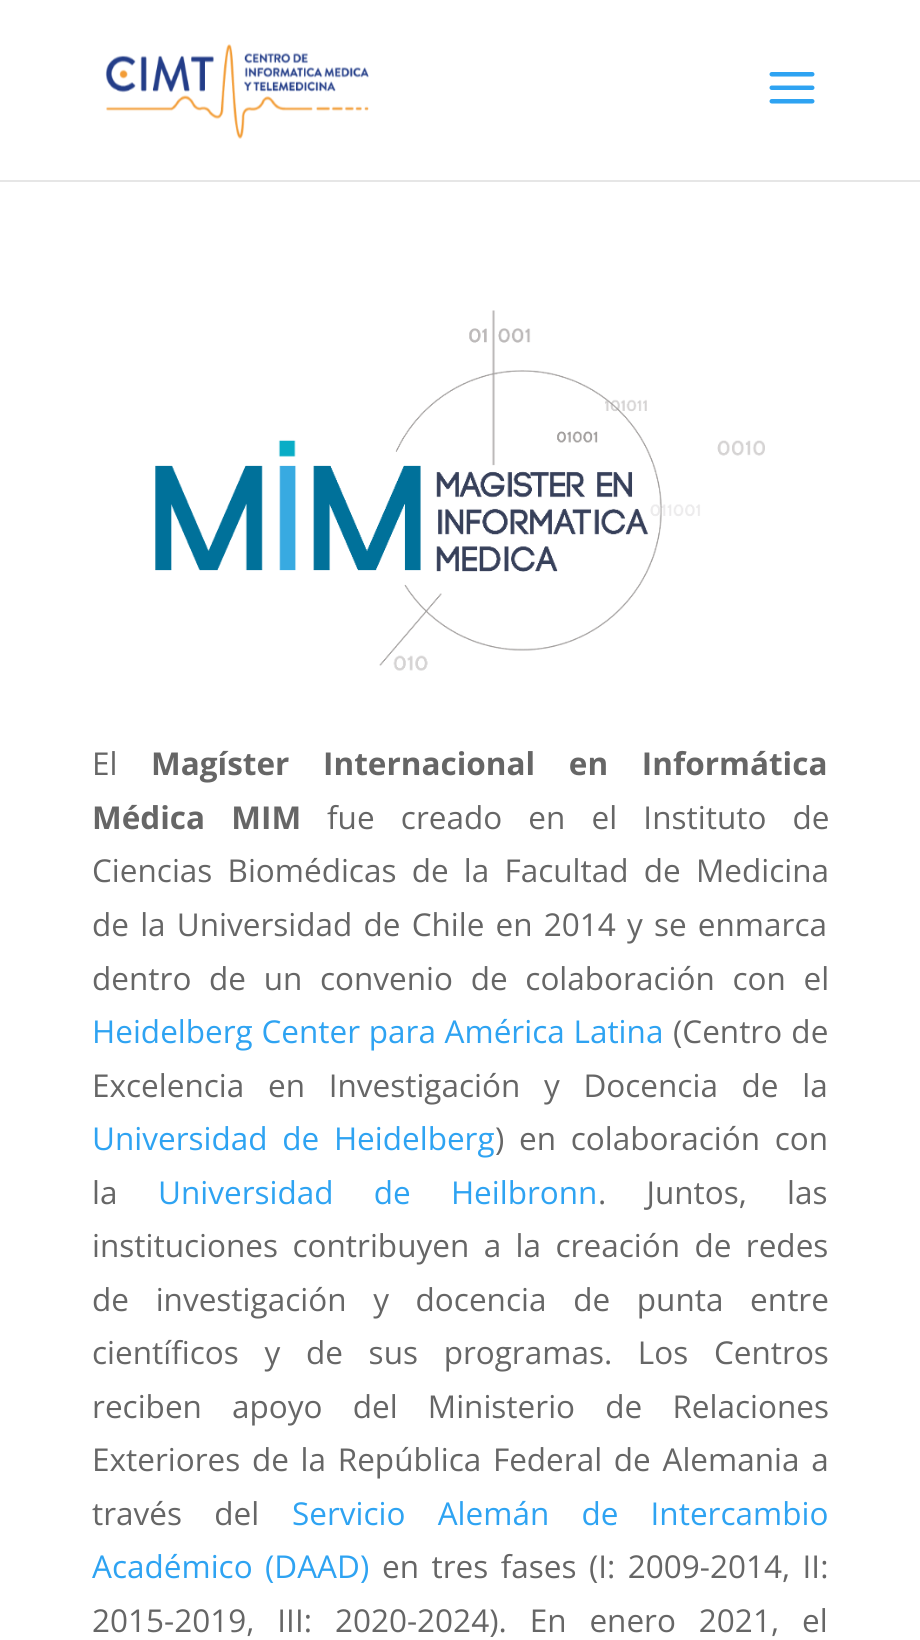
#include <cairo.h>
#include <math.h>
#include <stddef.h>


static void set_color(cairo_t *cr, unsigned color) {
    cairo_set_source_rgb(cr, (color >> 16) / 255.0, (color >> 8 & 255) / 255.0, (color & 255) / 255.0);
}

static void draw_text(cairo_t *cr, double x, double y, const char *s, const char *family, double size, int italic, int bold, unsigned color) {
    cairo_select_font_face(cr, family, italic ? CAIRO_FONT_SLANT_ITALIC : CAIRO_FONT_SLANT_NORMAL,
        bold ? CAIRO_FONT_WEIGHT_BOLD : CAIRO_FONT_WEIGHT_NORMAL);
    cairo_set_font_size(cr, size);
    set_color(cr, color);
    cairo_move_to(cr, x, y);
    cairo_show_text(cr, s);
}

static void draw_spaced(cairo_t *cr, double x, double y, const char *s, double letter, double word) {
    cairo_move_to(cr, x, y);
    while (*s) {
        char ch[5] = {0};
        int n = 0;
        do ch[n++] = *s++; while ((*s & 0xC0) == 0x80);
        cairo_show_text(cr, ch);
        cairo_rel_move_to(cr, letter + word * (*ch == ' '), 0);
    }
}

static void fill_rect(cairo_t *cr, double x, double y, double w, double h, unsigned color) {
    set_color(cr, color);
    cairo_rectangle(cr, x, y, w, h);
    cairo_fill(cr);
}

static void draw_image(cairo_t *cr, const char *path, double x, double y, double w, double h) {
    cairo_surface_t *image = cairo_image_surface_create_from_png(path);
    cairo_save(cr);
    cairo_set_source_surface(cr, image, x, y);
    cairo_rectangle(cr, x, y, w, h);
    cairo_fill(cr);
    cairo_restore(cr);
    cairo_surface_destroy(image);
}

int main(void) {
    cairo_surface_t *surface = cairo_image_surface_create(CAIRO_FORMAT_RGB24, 920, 1640);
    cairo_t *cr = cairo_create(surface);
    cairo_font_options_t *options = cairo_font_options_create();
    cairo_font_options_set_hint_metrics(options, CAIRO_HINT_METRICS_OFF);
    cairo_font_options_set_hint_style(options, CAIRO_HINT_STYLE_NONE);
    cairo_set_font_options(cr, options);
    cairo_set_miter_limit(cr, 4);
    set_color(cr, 0xFFFFFF);
    cairo_paint(cr);
    fill_rect(cr, 0, 180, 920, 2, 0xE6E6E6);
    draw_image(cr, "assets/img1.png", 105, 44, 264, 95);
    draw_image(cr, "assets/img2.png", 769, 72, 46, 32);
    draw_image(cr, "assets/img3.png", 155, 310, 610, 361);
    draw_text(cr, 92, 775, "El", "Open Sans", 31.5, 0, 0, 0x666666);
    cairo_select_font_face(cr, "Open Sans", CAIRO_FONT_SLANT_NORMAL, CAIRO_FONT_WEIGHT_BOLD);
    draw_spaced(cr, 151, 775, "Magíster Internacional en Informática", 0, 25.5);
    draw_spaced(cr, 92, 829, "Médica MIM", 0, 18);
    cairo_select_font_face(cr, "Open Sans", CAIRO_FONT_SLANT_NORMAL, CAIRO_FONT_WEIGHT_NORMAL);
    draw_spaced(cr, 327, 829, "fue creado en el Instituto de", 0, 18);
    draw_spaced(cr, 92, 882, "Ciencias Biomédicas de la Facultad de Medicina", 0, 7);
    draw_spaced(cr, 92, 936, "de la Universidad de Chile en 2014 y se enmarca", 0, 3);
    draw_spaced(cr, 92, 990, "dentro de un convenio de colaboración con el", 0, 9.5);
    set_color(cr, 0x2EA3F2);
    draw_spaced(cr, 92, 1043, "Heidelberg Center para América Latina", 0, 0.5);
    set_color(cr, 0x666666);
    draw_spaced(cr, 673, 1043, "(Centro de", 0, 1);
    draw_spaced(cr, 92, 1097, "Excelencia en Investigación y Docencia de la", 0, 15.5);
    set_color(cr, 0x2EA3F2);
    draw_spaced(cr, 92, 1150, "Universidad de Heidelberg", 0, 6.5);
    set_color(cr, 0x666666);
    draw_spaced(cr, 495, 1150, ") en colaboración con", 0, 6.5);
    draw_text(cr, 92, 1204, "la", "Open Sans", 31.5, 0, 0, 0x666666);
    set_color(cr, 0x2EA3F2);
    draw_spaced(cr, 158, 1204, "Universidad de Heilbronn", 0, 32);
    set_color(cr, 0x666666);
    draw_spaced(cr, 598, 1204, ". Juntos, las", 0, 32);
    draw_spaced(cr, 92, 1257, "instituciones contribuyen a la creación de redes", 0, 6.25);
    draw_spaced(cr, 92, 1311, "de investigación y docencia de punta entre", 0, 18.5);
    draw_spaced(cr, 92, 1364, "científicos y de sus programas. Los Centros", 0, 17.5);
    draw_spaced(cr, 92, 1418, "reciben apoyo del Ministerio de Relaciones", 0, 22);
    draw_spaced(cr, 92, 1471, "Exteriores de la República Federal de Alemania a", 0, 3.5);
    draw_spaced(cr, 92, 1525, "través del", 0, 24);
    set_color(cr, 0x2EA3F2);
    draw_spaced(cr, 292, 1525, "Servicio Alemán de Intercambio", 0, 24);
    draw_spaced(cr, 92, 1578, "Académico (DAAD)", 0, 4.25);
    set_color(cr, 0x666666);
    draw_spaced(cr, 382, 1578, "en tres fases (I: 2009-2014, II:", 0, 4.25);
    draw_spaced(cr, 92, 1632, "2015-2019, III: 2020-2024). En enero 2021, el", 0, 14.75);
    cairo_surface_write_to_png(surface, "output.png");
    cairo_font_options_destroy(options);
    cairo_destroy(cr);
    cairo_surface_destroy(surface);
    return 0;
}
